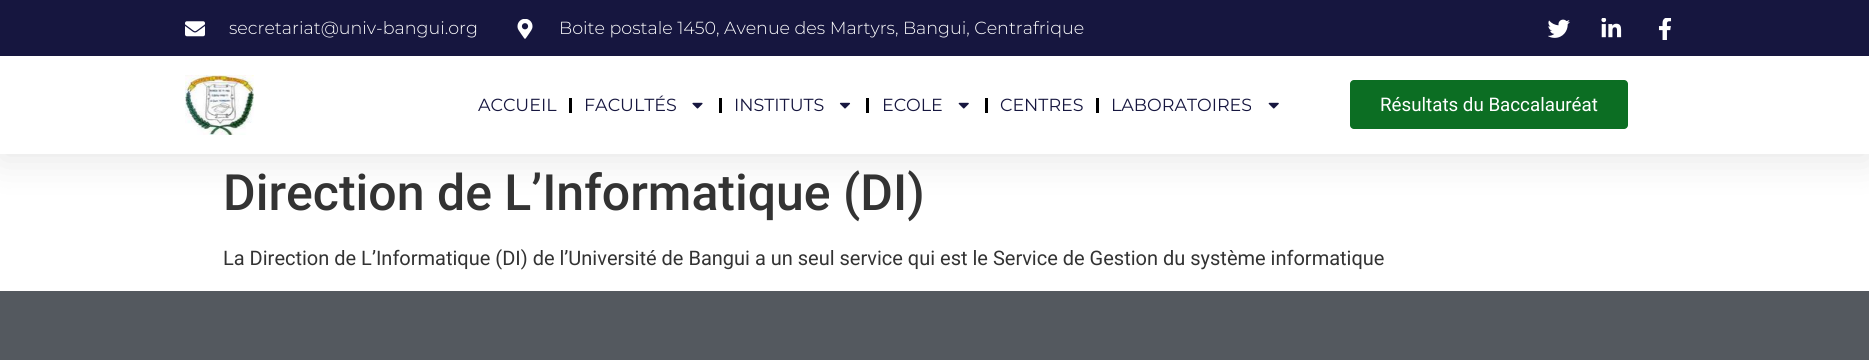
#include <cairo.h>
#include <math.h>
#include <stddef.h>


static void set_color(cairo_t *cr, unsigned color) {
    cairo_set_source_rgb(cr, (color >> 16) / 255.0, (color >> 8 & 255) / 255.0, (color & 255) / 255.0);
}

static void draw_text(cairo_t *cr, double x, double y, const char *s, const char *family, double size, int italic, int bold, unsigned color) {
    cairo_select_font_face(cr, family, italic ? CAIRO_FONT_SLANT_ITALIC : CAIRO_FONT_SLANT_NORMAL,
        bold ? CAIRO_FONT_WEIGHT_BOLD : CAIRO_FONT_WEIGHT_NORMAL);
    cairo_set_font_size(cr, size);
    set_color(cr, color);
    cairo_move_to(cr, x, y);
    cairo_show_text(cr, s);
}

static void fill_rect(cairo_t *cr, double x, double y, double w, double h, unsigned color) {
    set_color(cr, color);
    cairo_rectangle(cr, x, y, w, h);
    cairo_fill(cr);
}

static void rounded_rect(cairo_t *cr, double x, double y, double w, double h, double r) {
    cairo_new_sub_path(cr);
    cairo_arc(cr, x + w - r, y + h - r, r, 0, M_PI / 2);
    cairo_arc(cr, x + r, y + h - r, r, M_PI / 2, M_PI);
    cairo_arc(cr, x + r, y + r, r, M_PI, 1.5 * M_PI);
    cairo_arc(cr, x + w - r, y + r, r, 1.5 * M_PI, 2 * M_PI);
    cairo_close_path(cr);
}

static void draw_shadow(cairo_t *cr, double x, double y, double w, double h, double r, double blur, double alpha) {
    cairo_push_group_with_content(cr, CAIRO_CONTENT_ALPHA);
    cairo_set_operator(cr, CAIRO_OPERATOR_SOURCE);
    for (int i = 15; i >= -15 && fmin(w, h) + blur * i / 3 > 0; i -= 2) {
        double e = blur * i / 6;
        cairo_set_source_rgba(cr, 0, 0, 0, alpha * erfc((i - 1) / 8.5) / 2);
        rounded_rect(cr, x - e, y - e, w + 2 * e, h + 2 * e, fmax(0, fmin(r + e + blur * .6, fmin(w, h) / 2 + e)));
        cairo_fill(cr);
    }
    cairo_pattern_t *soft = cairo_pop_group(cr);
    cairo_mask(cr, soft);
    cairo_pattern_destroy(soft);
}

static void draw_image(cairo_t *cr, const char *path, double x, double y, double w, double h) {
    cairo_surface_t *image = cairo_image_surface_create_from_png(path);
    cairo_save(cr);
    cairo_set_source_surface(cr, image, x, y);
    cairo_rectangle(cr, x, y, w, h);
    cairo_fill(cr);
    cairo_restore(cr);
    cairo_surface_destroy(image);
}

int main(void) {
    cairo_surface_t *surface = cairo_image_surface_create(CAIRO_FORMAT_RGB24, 1869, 360);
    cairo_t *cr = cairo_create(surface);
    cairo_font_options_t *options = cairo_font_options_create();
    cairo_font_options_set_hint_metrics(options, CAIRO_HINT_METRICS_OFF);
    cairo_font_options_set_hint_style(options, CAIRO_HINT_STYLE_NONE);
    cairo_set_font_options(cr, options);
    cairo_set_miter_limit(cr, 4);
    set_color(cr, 0xFFFFFF);
    cairo_paint(cr);
    set_color(cr, 0x000000);
    draw_shadow(cr, 0, 6, 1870, 154, 0, 19, 0.1);
    fill_rect(cr, 0, 0, 1869, 56, 0x16163F);
    draw_image(cr, "assets/img1.png", 185, 21, 20, 16);
    draw_text(cr, 229, 34, "secretariat@univ-bangui.org", "Montserrat Light", 17.5, 0, 0, 0xFFFFFF);
    draw_image(cr, "assets/img2.png", 517, 19, 16, 20);
    draw_text(cr, 559, 34, "Boite postale 1450, Avenue des Martyrs, Bangui, Centrafrique", "Montserrat Light", 17.5, 0, 0, 0xFFFFFF);
    draw_image(cr, "assets/img3.png", 1548, 19, 22, 19);
    draw_image(cr, "assets/img4.png", 1601, 18, 21, 20);
    draw_image(cr, "assets/img5.png", 1658, 18, 14, 22);
    fill_rect(cr, 0, 56, 1869, 98, 0xFFFFFF);
    draw_image(cr, "assets/img6.png", 185, 75, 69, 60);
    draw_text(cr, 478, 111, "ACCUEIL", "Montserrat", 17.5, 0, 0, 0x16163F);
    fill_rect(cr, 569, 98, 3, 15, 0x000000);
    draw_text(cr, 584, 111, "FACULTÉS", "Montserrat", 17.5, 0, 0, 0x16163F);
    draw_image(cr, "assets/img7.png", 692, 102, 11, 7);
    fill_rect(cr, 719, 98, 3, 15, 0x000000);
    draw_text(cr, 734, 111, "INSTITUTS", "Montserrat", 17.5, 0, 0, 0x16163F);
    draw_image(cr, "assets/img8.png", 839, 102, 12, 7);
    fill_rect(cr, 866, 98, 3, 15, 0x000000);
    draw_text(cr, 882, 111, "ECOLE", "Montserrat", 17.5, 0, 0, 0x16163F);
    draw_image(cr, "assets/img9.png", 958, 102, 11, 7);
    fill_rect(cr, 985, 98, 3, 15, 0x000000);
    draw_text(cr, 1000, 111, "CENTRES", "Montserrat", 17.5, 0, 0, 0x16163F);
    fill_rect(cr, 1096, 98, 3, 15, 0x000000);
    draw_text(cr, 1111, 111, "LABORATOIRES", "Montserrat", 17.5, 0, 0, 0x16163F);
    draw_image(cr, "assets/img9.png", 1268, 102, 11, 7);
    set_color(cr, 0x0C6E23);
    rounded_rect(cr, 1350, 80, 278, 49, 4);
    cairo_fill(cr);
    draw_text(cr, 1380, 111, "Résultats du Baccalauréat", "Roboto", 18.75, 0, 0, 0xFFFFFF);
    draw_text(cr, 223, 210, "Direction de L’Informatique (DI)", "Roboto Medium", 50, 0, 0, 0x333333);
    draw_text(cr, 223, 265, "La Direction de L’Informatique (DI) de l’Université de Bangui a un seul service qui est le Service de Gestion du système informatique", "Roboto", 20, 0, 0, 0x333333);
    fill_rect(cr, 0, 291, 1869, 69, 0x54595F);
    cairo_surface_write_to_png(surface, "output.png");
    cairo_font_options_destroy(options);
    cairo_destroy(cr);
    cairo_surface_destroy(surface);
    return 0;
}
